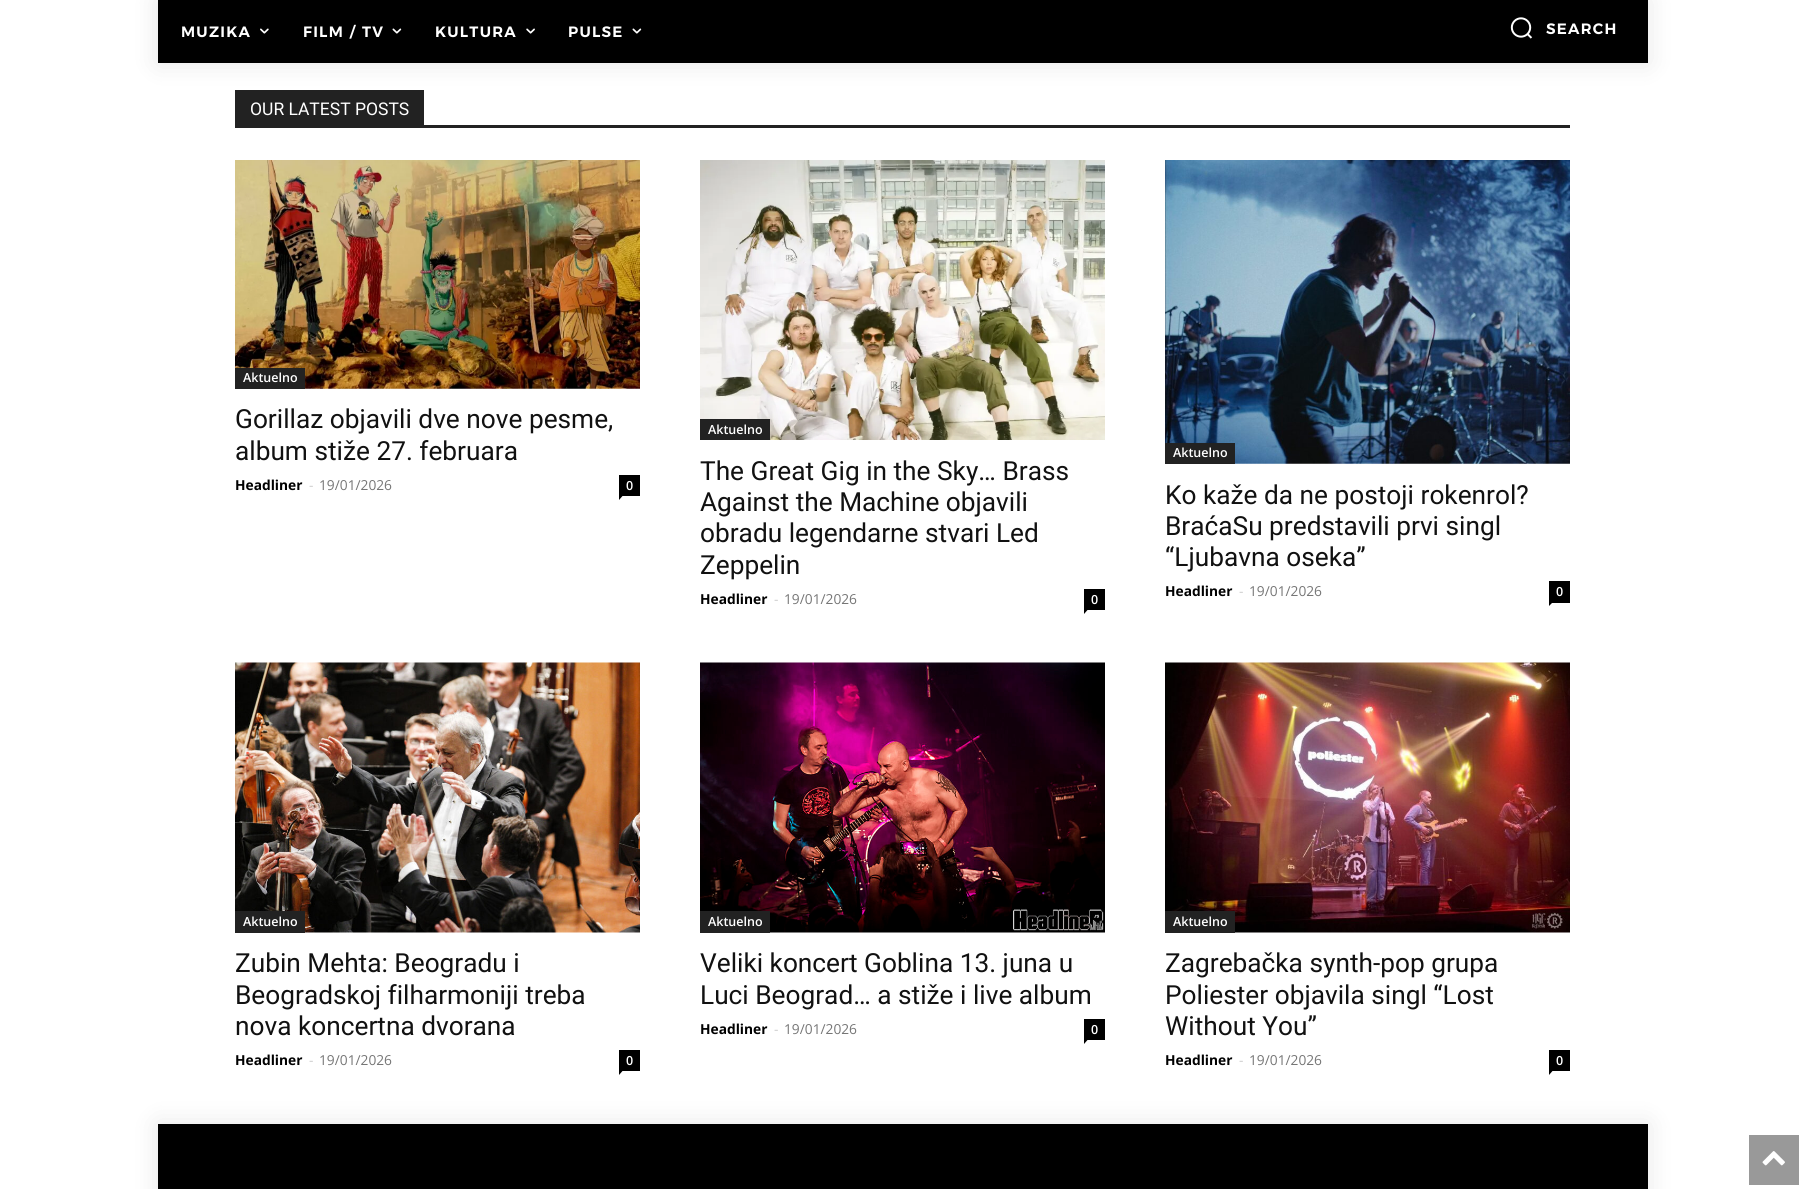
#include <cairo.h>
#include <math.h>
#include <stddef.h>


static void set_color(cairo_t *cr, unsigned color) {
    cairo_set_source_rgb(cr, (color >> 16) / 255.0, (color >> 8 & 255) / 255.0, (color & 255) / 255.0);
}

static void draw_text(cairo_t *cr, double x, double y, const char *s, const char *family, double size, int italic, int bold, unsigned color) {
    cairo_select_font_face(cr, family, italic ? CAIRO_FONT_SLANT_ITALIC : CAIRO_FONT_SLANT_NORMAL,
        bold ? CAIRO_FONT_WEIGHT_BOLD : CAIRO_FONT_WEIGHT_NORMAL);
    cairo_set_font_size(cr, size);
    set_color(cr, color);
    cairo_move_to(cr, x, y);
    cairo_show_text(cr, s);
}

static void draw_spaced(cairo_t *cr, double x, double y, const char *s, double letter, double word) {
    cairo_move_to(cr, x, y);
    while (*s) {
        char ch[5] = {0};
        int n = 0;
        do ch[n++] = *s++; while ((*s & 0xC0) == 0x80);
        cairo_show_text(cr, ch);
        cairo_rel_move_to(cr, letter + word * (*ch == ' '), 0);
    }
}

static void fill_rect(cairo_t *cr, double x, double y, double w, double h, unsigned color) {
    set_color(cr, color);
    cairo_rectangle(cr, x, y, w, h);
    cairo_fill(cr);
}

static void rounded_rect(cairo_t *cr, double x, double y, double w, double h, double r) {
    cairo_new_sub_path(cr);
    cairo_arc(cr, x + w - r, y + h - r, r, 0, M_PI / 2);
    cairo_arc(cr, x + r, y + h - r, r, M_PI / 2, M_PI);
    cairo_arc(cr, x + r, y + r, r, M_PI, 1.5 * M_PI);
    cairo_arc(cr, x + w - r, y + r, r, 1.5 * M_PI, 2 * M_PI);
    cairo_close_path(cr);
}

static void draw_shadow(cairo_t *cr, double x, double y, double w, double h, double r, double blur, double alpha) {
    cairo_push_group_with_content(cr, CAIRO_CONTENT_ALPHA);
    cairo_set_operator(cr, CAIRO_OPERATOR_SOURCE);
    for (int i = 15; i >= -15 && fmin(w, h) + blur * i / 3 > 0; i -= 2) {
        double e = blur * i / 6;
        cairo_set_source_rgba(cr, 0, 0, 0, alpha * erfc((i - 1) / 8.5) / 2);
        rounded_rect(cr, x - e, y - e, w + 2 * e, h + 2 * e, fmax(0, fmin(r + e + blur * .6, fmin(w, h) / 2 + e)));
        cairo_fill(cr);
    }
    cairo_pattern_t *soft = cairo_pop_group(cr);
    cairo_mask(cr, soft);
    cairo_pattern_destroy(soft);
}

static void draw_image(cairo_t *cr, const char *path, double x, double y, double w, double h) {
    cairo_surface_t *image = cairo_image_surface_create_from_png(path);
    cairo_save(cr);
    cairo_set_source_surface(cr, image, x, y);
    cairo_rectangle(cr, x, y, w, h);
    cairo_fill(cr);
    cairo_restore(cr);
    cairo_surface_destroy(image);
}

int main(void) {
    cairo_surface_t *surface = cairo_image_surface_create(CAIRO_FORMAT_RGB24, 1805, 1189);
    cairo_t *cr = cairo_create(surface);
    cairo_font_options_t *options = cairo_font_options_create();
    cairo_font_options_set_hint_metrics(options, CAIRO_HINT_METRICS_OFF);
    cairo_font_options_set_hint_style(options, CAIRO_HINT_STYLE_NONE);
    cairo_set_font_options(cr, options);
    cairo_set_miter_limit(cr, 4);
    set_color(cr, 0xFFFFFF);
    cairo_paint(cr);
    fill_rect(cr, 235, 90, 189, 35, 0x222222);
    set_color(cr, 0x000000);
    draw_shadow(cr, 158, 0, 1490, 63, 0, 12.5, 0.1);
    fill_rect(cr, 158, 0, 1490, 63, 0x000000);
    cairo_select_font_face(cr, "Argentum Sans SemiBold", CAIRO_FONT_SLANT_NORMAL, CAIRO_FONT_WEIGHT_NORMAL);
    cairo_set_font_size(cr, 15);
    set_color(cr, 0xFFFFFF);
    draw_spaced(cr, 181, 37, "MUZIKA", 1.25, 0);
    draw_image(cr, "assets/img1.png", 260, 28, 9, 6);
    draw_spaced(cr, 303, 37, "FILM / TV", 1.25, 0);
    draw_image(cr, "assets/img2.png", 392, 28, 10, 6);
    draw_spaced(cr, 435, 37, "KULTURA", 1.25, 0);
    draw_image(cr, "assets/img3.png", 526, 28, 9, 6);
    draw_spaced(cr, 568, 37, "PULSE", 1.25, 0);
    draw_image(cr, "assets/img2.png", 632, 28, 10, 6);
    draw_image(cr, "assets/img4.png", 1510, 17, 23, 22);
    draw_spaced(cr, 1546, 34, "SEARCH", 1.25, 0);
    fill_rect(cr, 235, 125, 1335, 3, 0x222222);
    draw_text(cr, 250, 115, "OUR LATEST POSTS", "Roboto", 17.5, 0, 0, 0xFFFFFF);
    draw_image(cr, "assets/img5.png", 235, 160, 405, 229);
    fill_rect(cr, 235, 368, 70, 21, 0x222222);
    draw_text(cr, 243, 382, "Aktuelno", "Open Sans SemiBold", 12.5, 0, 0, 0xFFFFFF);
    draw_text(cr, 235, 428, "Gorillaz objavili dve nove pesme,", "Roboto", 26.25, 0, 0, 0x111111);
    draw_text(cr, 235, 460, "album stiže 27. februara", "Roboto", 26.25, 0, 0, 0x111111);
    draw_text(cr, 235, 490, "Headliner", "Open Sans", 13.75, 0, 1, 0x000000);
    draw_text(cr, 309, 490, "-", "Open Sans", 13.75, 0, 0, 0xCCCCCC);
    draw_text(cr, 319, 490, "19/01/2026", "Open Sans", 13.75, 0, 0, 0x767676);
    fill_rect(cr, 619, 475, 21, 21, 0x000000);
    draw_text(cr, 626, 490, "0", "Open Sans SemiBold", 12.5, 0, 0, 0xFFFFFF);
    set_color(cr, 0x000000);
    cairo_new_path(cr);
    cairo_move_to(cr, 619, 496);
    cairo_line_to(cr, 622.5, 496);
    cairo_line_to(cr, 619, 500);
    cairo_close_path(cr);
    cairo_fill(cr);
    draw_image(cr, "assets/img6.png", 700, 160, 405, 280);
    fill_rect(cr, 700, 419, 70, 21, 0x222222);
    draw_text(cr, 708, 434, "Aktuelno", "Open Sans SemiBold", 12.5, 0, 0, 0xFFFFFF);
    draw_text(cr, 700, 480, "The Great Gig in the Sky… Brass", "Roboto", 26.25, 0, 0, 0x111111);
    draw_text(cr, 700, 511, "Against the Machine objavili", "Roboto", 26.25, 0, 0, 0x111111);
    draw_text(cr, 700, 542, "obradu legendarne stvari Led", "Roboto", 26.25, 0, 0, 0x111111);
    draw_text(cr, 700, 574, "Zeppelin", "Roboto", 26.25, 0, 0, 0x111111);
    draw_text(cr, 700, 604, "Headliner", "Open Sans", 13.75, 0, 1, 0x000000);
    draw_text(cr, 774, 604, "-", "Open Sans", 13.75, 0, 0, 0xCCCCCC);
    draw_text(cr, 784, 604, "19/01/2026", "Open Sans", 13.75, 0, 0, 0x767676);
    fill_rect(cr, 1084, 589, 21, 21, 0x000000);
    draw_text(cr, 1091, 604, "0", "Open Sans SemiBold", 12.5, 0, 0, 0xFFFFFF);
    set_color(cr, 0x000000);
    cairo_new_path(cr);
    cairo_move_to(cr, 1084, 610);
    cairo_line_to(cr, 1087.5, 610);
    cairo_line_to(cr, 1084, 614);
    cairo_close_path(cr);
    cairo_fill(cr);
    draw_image(cr, "assets/img7.png", 1165, 160, 405, 304);
    fill_rect(cr, 1165, 443, 70, 21, 0x222222);
    draw_text(cr, 1173, 457, "Aktuelno", "Open Sans SemiBold", 12.5, 0, 0, 0xFFFFFF);
    draw_text(cr, 1165, 504, "Ko kaže da ne postoji rokenrol?", "Roboto", 26.25, 0, 0, 0x111111);
    draw_text(cr, 1165, 535, "BraćaSu predstavili prvi singl", "Roboto", 26.25, 0, 0, 0x111111);
    draw_text(cr, 1165, 566, "“Ljubavna oseka”", "Roboto", 26.25, 0, 0, 0x111111);
    draw_text(cr, 1165, 596, "Headliner", "Open Sans", 13.75, 0, 1, 0x000000);
    draw_text(cr, 1239, 596, "-", "Open Sans", 13.75, 0, 0, 0xCCCCCC);
    draw_text(cr, 1249, 596, "19/01/2026", "Open Sans", 13.75, 0, 0, 0x767676);
    fill_rect(cr, 1549, 581, 21, 22, 0x000000);
    draw_text(cr, 1556, 596, "0", "Open Sans SemiBold", 12.5, 0, 0, 0xFFFFFF);
    set_color(cr, 0x000000);
    cairo_new_path(cr);
    cairo_move_to(cr, 1549, 602.5);
    cairo_line_to(cr, 1552.5, 602.5);
    cairo_line_to(cr, 1549, 606);
    cairo_close_path(cr);
    cairo_fill(cr);
    draw_image(cr, "assets/img8.png", 235, 662, 405, 271);
    fill_rect(cr, 235, 911, 70, 22, 0x222222);
    draw_text(cr, 243, 926, "Aktuelno", "Open Sans SemiBold", 12.5, 0, 0, 0xFFFFFF);
    draw_text(cr, 235, 972, "Zubin Mehta: Beogradu i", "Roboto", 26.25, 0, 0, 0x111111);
    draw_text(cr, 235, 1004, "Beogradskoj filharmoniji treba", "Roboto", 26.25, 0, 0, 0x111111);
    draw_text(cr, 235, 1035, "nova koncertna dvorana", "Roboto", 26.25, 0, 0, 0x111111);
    draw_text(cr, 235, 1065, "Headliner", "Open Sans", 13.75, 0, 1, 0x000000);
    draw_text(cr, 309, 1065, "-", "Open Sans", 13.75, 0, 0, 0xCCCCCC);
    draw_text(cr, 319, 1065, "19/01/2026", "Open Sans", 13.75, 0, 0, 0x767676);
    fill_rect(cr, 619, 1050, 21, 21, 0x000000);
    draw_text(cr, 626, 1065, "0", "Open Sans SemiBold", 12.5, 0, 0, 0xFFFFFF);
    set_color(cr, 0x000000);
    cairo_new_path(cr);
    cairo_move_to(cr, 619, 1071);
    cairo_line_to(cr, 622.5, 1071);
    cairo_line_to(cr, 619, 1075);
    cairo_close_path(cr);
    cairo_fill(cr);
    draw_image(cr, "assets/img9.png", 700, 662, 405, 271);
    fill_rect(cr, 700, 911, 70, 22, 0x222222);
    draw_text(cr, 708, 926, "Aktuelno", "Open Sans SemiBold", 12.5, 0, 0, 0xFFFFFF);
    draw_text(cr, 700, 972, "Veliki koncert Goblina 13. juna u", "Roboto", 26.25, 0, 0, 0x111111);
    draw_text(cr, 700, 1004, "Luci Beograd… a stiže i live album", "Roboto", 26.25, 0, 0, 0x111111);
    draw_text(cr, 700, 1034, "Headliner", "Open Sans", 13.75, 0, 1, 0x000000);
    draw_text(cr, 774, 1034, "-", "Open Sans", 13.75, 0, 0, 0xCCCCCC);
    draw_text(cr, 784, 1034, "19/01/2026", "Open Sans", 13.75, 0, 0, 0x767676);
    fill_rect(cr, 1084, 1019, 21, 21, 0x000000);
    draw_text(cr, 1091, 1034, "0", "Open Sans SemiBold", 12.5, 0, 0, 0xFFFFFF);
    set_color(cr, 0x000000);
    cairo_new_path(cr);
    cairo_move_to(cr, 1084, 1040);
    cairo_line_to(cr, 1087.5, 1040);
    cairo_line_to(cr, 1084, 1044);
    cairo_close_path(cr);
    cairo_fill(cr);
    draw_image(cr, "assets/img10.png", 1165, 662, 405, 271);
    fill_rect(cr, 1165, 911, 70, 22, 0x222222);
    draw_text(cr, 1173, 926, "Aktuelno", "Open Sans SemiBold", 12.5, 0, 0, 0xFFFFFF);
    draw_text(cr, 1165, 972, "Zagrebačka synth-pop grupa", "Roboto", 26.25, 0, 0, 0x111111);
    draw_text(cr, 1165, 1004, "Poliester objavila singl “Lost", "Roboto", 26.25, 0, 0, 0x111111);
    draw_text(cr, 1165, 1035, "Without You”", "Roboto", 26.25, 0, 0, 0x111111);
    draw_text(cr, 1165, 1065, "Headliner", "Open Sans", 13.75, 0, 1, 0x000000);
    draw_text(cr, 1239, 1065, "-", "Open Sans", 13.75, 0, 0, 0xCCCCCC);
    draw_text(cr, 1249, 1065, "19/01/2026", "Open Sans", 13.75, 0, 0, 0x767676);
    fill_rect(cr, 1549, 1050, 21, 21, 0x000000);
    draw_text(cr, 1556, 1065, "0", "Open Sans SemiBold", 12.5, 0, 0, 0xFFFFFF);
    set_color(cr, 0x000000);
    cairo_new_path(cr);
    cairo_move_to(cr, 1549, 1071);
    cairo_line_to(cr, 1552.5, 1071);
    cairo_line_to(cr, 1549, 1075);
    cairo_close_path(cr);
    cairo_fill(cr);
    set_color(cr, 0x000000);
    draw_shadow(cr, 158, 1124, 1490, 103, 0, 12.5, 0.1);
    fill_rect(cr, 158, 1124, 1490, 65, 0x000000);
    fill_rect(cr, 1749, 1135, 50, 50, 0x999999);
    draw_image(cr, "assets/img11.png", 1762, 1151, 23, 15);
    cairo_surface_write_to_png(surface, "output.png");
    cairo_font_options_destroy(options);
    cairo_destroy(cr);
    cairo_surface_destroy(surface);
    return 0;
}
